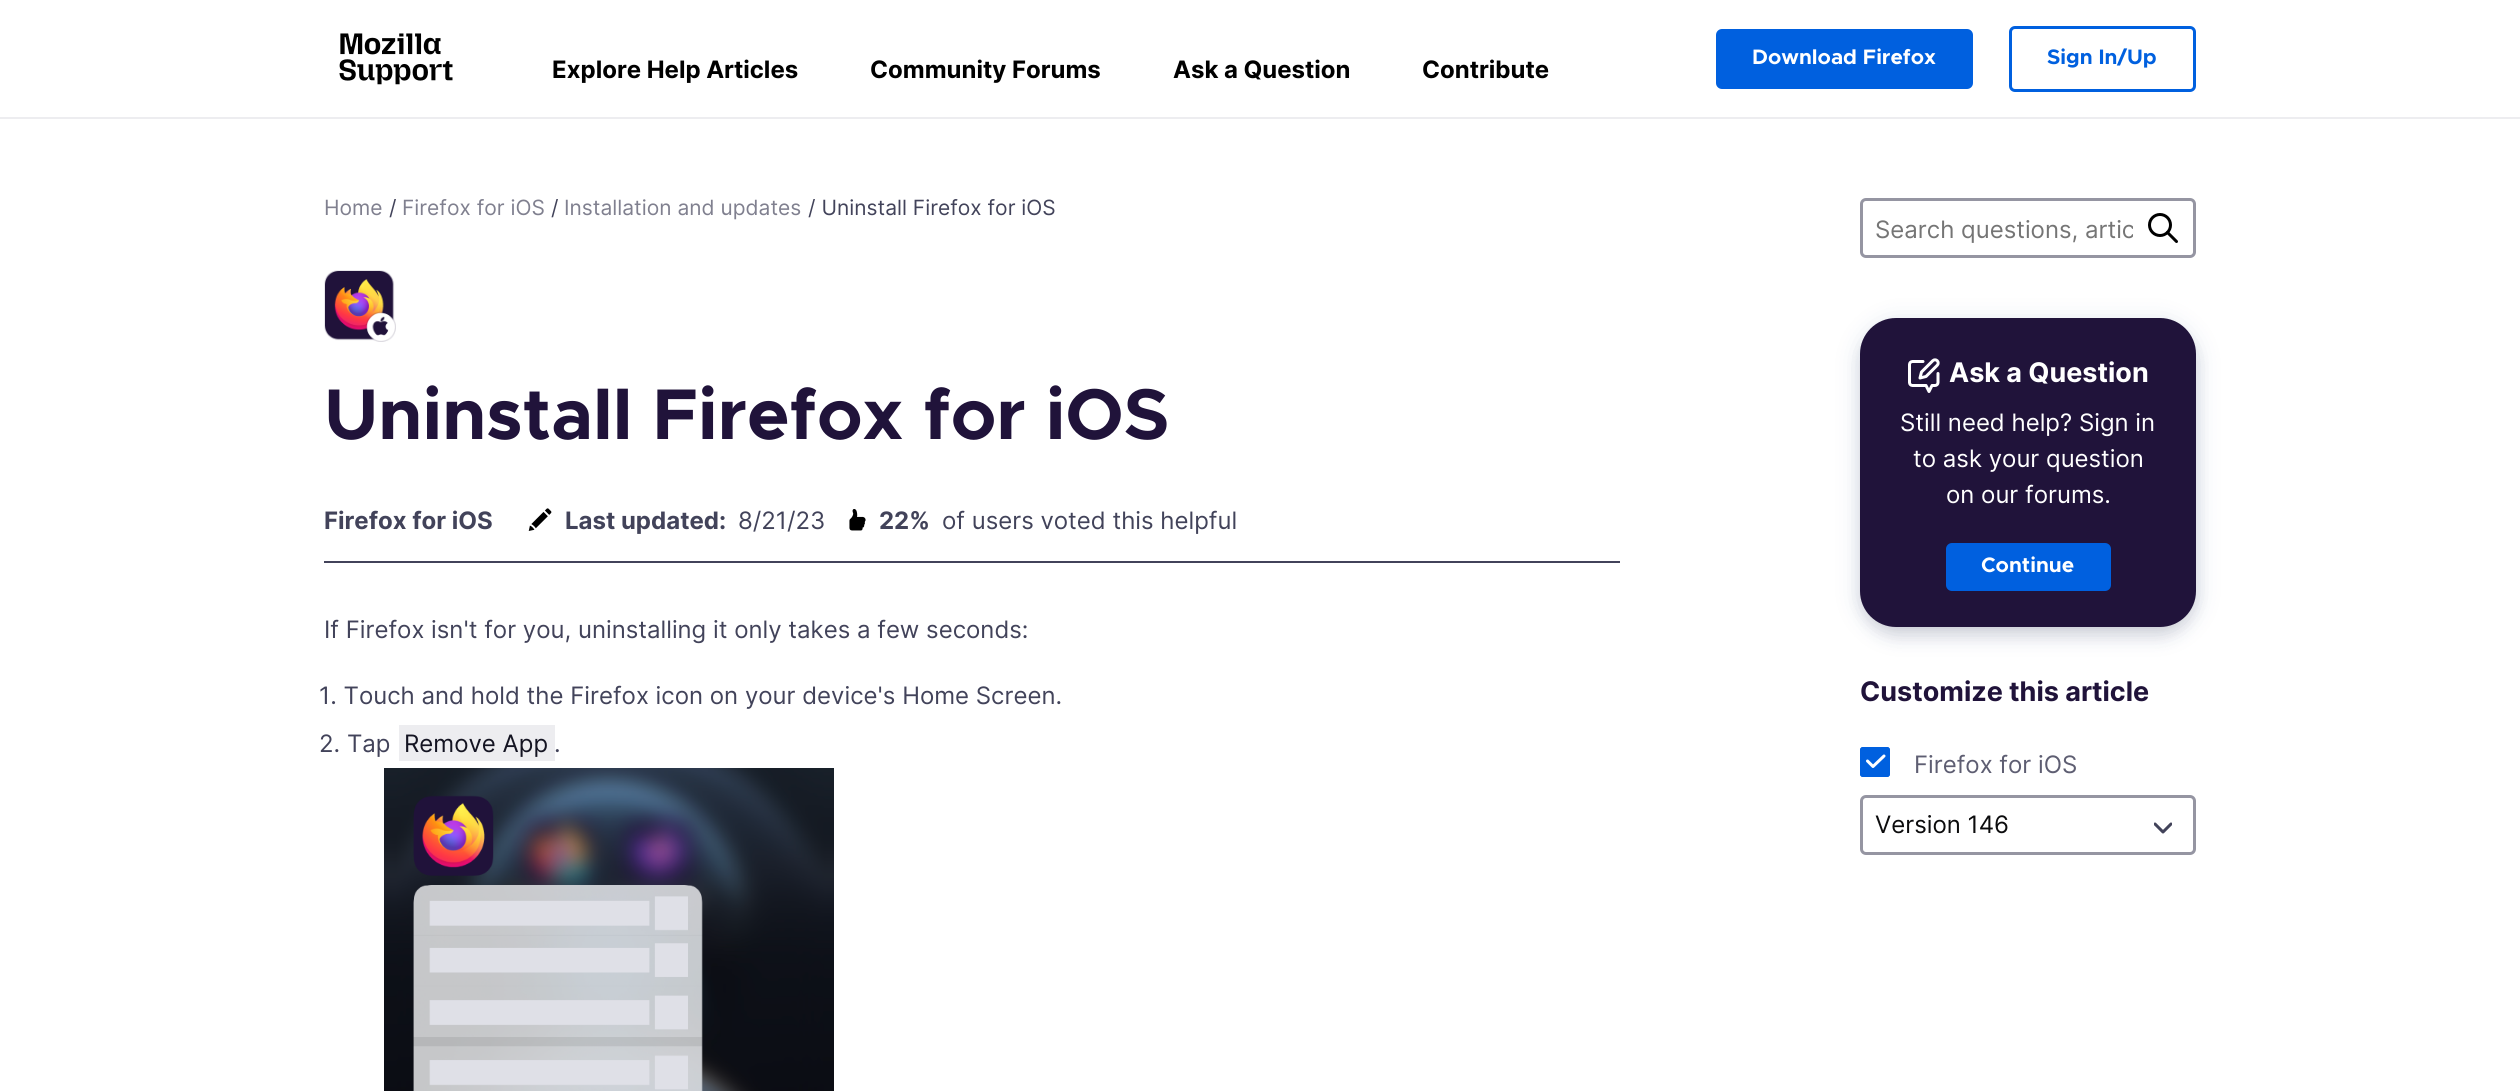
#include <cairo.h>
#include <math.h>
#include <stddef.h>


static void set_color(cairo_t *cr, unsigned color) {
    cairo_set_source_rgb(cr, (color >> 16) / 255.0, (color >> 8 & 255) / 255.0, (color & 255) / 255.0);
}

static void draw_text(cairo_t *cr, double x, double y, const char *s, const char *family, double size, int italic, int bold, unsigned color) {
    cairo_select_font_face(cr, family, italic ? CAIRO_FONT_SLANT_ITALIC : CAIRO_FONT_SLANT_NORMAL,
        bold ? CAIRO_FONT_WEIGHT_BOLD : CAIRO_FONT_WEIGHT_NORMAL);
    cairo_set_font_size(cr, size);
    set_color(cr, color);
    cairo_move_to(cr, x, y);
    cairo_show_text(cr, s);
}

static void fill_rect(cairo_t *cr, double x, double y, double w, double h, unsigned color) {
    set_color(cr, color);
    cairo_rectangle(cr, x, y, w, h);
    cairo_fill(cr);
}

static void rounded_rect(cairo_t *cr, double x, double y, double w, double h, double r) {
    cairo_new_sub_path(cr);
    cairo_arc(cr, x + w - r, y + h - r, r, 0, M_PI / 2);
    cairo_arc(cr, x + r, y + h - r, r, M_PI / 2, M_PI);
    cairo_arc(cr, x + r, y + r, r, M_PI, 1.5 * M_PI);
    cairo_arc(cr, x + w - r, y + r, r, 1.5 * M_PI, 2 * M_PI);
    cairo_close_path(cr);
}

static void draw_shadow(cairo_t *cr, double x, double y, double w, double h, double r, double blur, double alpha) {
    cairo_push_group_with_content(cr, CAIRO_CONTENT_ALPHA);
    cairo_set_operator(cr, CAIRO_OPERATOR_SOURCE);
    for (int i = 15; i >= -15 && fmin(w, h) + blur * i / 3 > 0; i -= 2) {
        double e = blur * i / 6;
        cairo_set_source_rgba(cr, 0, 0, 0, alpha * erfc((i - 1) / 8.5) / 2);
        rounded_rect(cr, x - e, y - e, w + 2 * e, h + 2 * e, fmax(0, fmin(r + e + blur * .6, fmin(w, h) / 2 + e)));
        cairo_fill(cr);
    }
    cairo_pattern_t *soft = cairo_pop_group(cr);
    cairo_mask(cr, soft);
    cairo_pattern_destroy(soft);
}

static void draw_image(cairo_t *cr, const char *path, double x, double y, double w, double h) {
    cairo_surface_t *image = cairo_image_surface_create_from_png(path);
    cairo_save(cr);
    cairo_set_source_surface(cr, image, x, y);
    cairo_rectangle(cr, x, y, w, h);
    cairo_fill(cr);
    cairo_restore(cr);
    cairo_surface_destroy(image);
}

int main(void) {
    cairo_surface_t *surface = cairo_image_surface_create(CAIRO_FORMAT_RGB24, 2520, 1091);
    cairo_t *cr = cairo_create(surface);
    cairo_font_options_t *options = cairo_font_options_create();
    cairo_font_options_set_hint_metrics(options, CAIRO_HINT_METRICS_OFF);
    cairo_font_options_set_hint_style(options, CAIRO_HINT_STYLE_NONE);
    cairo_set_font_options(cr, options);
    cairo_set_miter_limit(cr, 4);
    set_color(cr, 0xFFFFFF);
    cairo_paint(cr);
    fill_rect(cr, 0, 117, 2520, 2, 0xEDEDF0);
    draw_image(cr, "assets/img1.png", 339, 33, 114, 52);
    draw_text(cr, 552, 78, "Explore Help Articles", "Inter", 24, 0, 1, 0x000000);
    draw_text(cr, 870, 78, "Community Forums", "Inter", 24, 0, 1, 0x000000);
    draw_text(cr, 1173, 78, "Ask a Question", "Inter", 24, 0, 1, 0x000000);
    draw_text(cr, 1422, 78, "Contribute", "Inter", 24, 0, 1, 0x000000);
    set_color(cr, 0x0060DF);
    rounded_rect(cr, 1716, 29, 257, 60, 6);
    cairo_fill(cr);
    draw_text(cr, 1752, 64, "Download Firefox", "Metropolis", 21, 0, 1, 0xFFFFFF);
    rounded_rect(cr, 2010.5, 27.5, 184, 63, 4.5);
    set_color(cr, 0x0060DF);
    cairo_set_line_width(cr, 3);
    cairo_stroke(cr);
    draw_text(cr, 2047, 64, "Sign In/Up", "Metropolis", 21, 0, 1, 0x0060DF);
    draw_text(cr, 324, 215, "Home", "Inter", 21, 0, 0, 0x80808F);
    draw_text(cr, 389, 215, "/", "Inter", 21, 0, 0, 0x42435A);
    draw_text(cr, 402, 215, "Firefox for iOS", "Inter", 21, 0, 0, 0x80808F);
    draw_text(cr, 551, 215, "/", "Inter", 21, 0, 0, 0x42435A);
    draw_text(cr, 564, 215, "Installation and updates", "Inter", 21, 0, 0, 0x80808F);
    draw_text(cr, 808, 215, "/ Uninstall Firefox for iOS", "Inter", 21, 0, 0, 0x42435A);
    draw_image(cr, "assets/img2.png", 324, 270, 72, 72);
    draw_text(cr, 324, 439, "Uninstall Firefox for iOS", "Metropolis", 72, 0, 1, 0x20133A);
    fill_rect(cr, 324, 561, 1296, 2, 0x42435A);
    draw_text(cr, 324, 529, "Firefox for iOS", "Inter", 24, 0, 1, 0x42435A);
    draw_image(cr, "assets/img3.png", 528, 508, 24, 23);
    draw_text(cr, 565, 529, "Last updated:", "Inter", 24, 0, 1, 0x42435A);
    draw_text(cr, 738, 529, "8/21/23", "Inter", 24, 0, 0, 0x42435A);
    draw_image(cr, "assets/img4.png", 849, 509, 17, 22);
    draw_text(cr, 879, 529, "22%", "Inter", 24, 0, 1, 0x42435A);
    draw_text(cr, 942, 529, "of users voted this helpful", "Inter", 24, 0, 0, 0x42435A);
    draw_text(cr, 324, 638, "If Firefox isn't for you, uninstalling it only takes a few seconds:", "Inter", 24, 0, 0, 0x42435A);
    draw_text(cr, 319, 704, "1. Touch and hold the Firefox icon on your device's Home Screen.", "Inter", 24, 0, 0, 0x42435A);
    draw_text(cr, 319, 752, "2. Tap", "Inter", 24, 0, 0, 0x42435A);
    fill_rect(cr, 399, 725, 156, 36, 0xEDEDF0);
    draw_text(cr, 404, 752, "Remove App", "Inter", 24, 0, 0, 0x141422);
    draw_text(cr, 554, 752, ".", "Inter", 24, 0, 0, 0x42435A);
    draw_image(cr, "assets/img5.png", 384, 768, 450, 323);
    rounded_rect(cr, 1861.5, 199.5, 333, 57, 4.5);
    set_color(cr, 0x9595A2);
    cairo_stroke(cr);
    cairo_save(cr);
    cairo_rectangle(cr, 1875, 213, 258, 30);
    cairo_clip(cr);
    draw_text(cr, 1875, 238, "Search questions, artic", "Inter", 24, 0, 0, 0x757575);
    cairo_restore(cr);
    cairo_new_path(cr);
    cairo_arc(cr, 2160, 225, 10.5, 0, 2 * M_PI);
    set_color(cr, 0x000000);
    cairo_stroke(cr);
    cairo_new_path(cr);
    cairo_move_to(cr, 2167.5, 232.5);
    cairo_line_to(cr, 2176.5, 241.5);
    cairo_set_line_cap(cr, CAIRO_LINE_CAP_ROUND);
    cairo_stroke(cr);
    set_color(cr, 0x220033);
    draw_shadow(cr, 1859, 329, 339, 312, 38, 9, 0.04);
    set_color(cr, 0x073072);
    draw_shadow(cr, 1857, 320, 342, 315, 39, 12, 0.12);
    set_color(cr, 0x0E0D1A);
    draw_shadow(cr, 1865, 330, 327, 300, 32, 7.5, 0.12);
    set_color(cr, 0x20133A);
    rounded_rect(cr, 1860, 318, 336, 309, 36);
    cairo_fill(cr);
    draw_image(cr, "assets/img6.png", 1908, 358, 32, 35);
    draw_text(cr, 1949, 382, "Ask a Question", "Inter", 27, 0, 1, 0xFFFFFF);
    draw_text(cr, 1900, 431, "Still need help? Sign in", "Inter", 24, 0, 0, 0xFFFFFF);
    draw_text(cr, 1913, 467, "to ask your question", "Inter", 24, 0, 0, 0xFFFFFF);
    draw_text(cr, 1946, 503, "on our forums.", "Inter", 24, 0, 0, 0xFFFFFF);
    set_color(cr, 0x0060DF);
    rounded_rect(cr, 1946, 543, 165, 48, 6);
    cairo_fill(cr);
    draw_text(cr, 1981, 572, "Continue", "Metropolis", 21, 0, 1, 0xFFFFFF);
    draw_text(cr, 1860, 701, "Customize this article", "Inter", 27, 0, 1, 0x20133A);
    set_color(cr, 0x0060DF);
    rounded_rect(cr, 1860, 747, 30, 30, 3);
    cairo_fill(cr);
    cairo_new_path(cr);
    cairo_move_to(cr, 1884, 756);
    cairo_line_to(cr, 1873, 766.5);
    cairo_line_to(cr, 1867.5, 761);
    set_color(cr, 0xFFFFFF);
    cairo_set_line_join(cr, CAIRO_LINE_JOIN_ROUND);
    cairo_stroke(cr);
    rounded_rect(cr, 1861.5, 748.5, 27, 27, 1.5);
    set_color(cr, 0x0060DF);
    cairo_set_line_cap(cr, CAIRO_LINE_CAP_BUTT);
    cairo_set_line_join(cr, CAIRO_LINE_JOIN_MITER);
    cairo_stroke(cr);
    draw_text(cr, 1914, 773, "Firefox for iOS", "Inter", 24, 0, 0, 0x5E5E72);
    cairo_save(cr);
    cairo_rectangle(cr, 2154, 819, 18, 18);
    cairo_clip(cr);
    cairo_new_path(cr);
    cairo_move_to(cr, 2155, 824);
    cairo_line_to(cr, 2163, 832);
    cairo_line_to(cr, 2171, 824);
    set_color(cr, 0x42435A);
    cairo_set_line_cap(cr, CAIRO_LINE_CAP_ROUND);
    cairo_set_line_join(cr, CAIRO_LINE_JOIN_ROUND);
    cairo_stroke(cr);
    cairo_restore(cr);
    rounded_rect(cr, 1861.5, 796.5, 333, 57, 4.5);
    set_color(cr, 0x9595A2);
    cairo_stroke(cr);
    draw_text(cr, 1875, 833, "Version 146", "Inter", 24, 0, 0, 0x0C0C0D);
    cairo_surface_write_to_png(surface, "output.png");
    cairo_font_options_destroy(options);
    cairo_destroy(cr);
    cairo_surface_destroy(surface);
    return 0;
}
